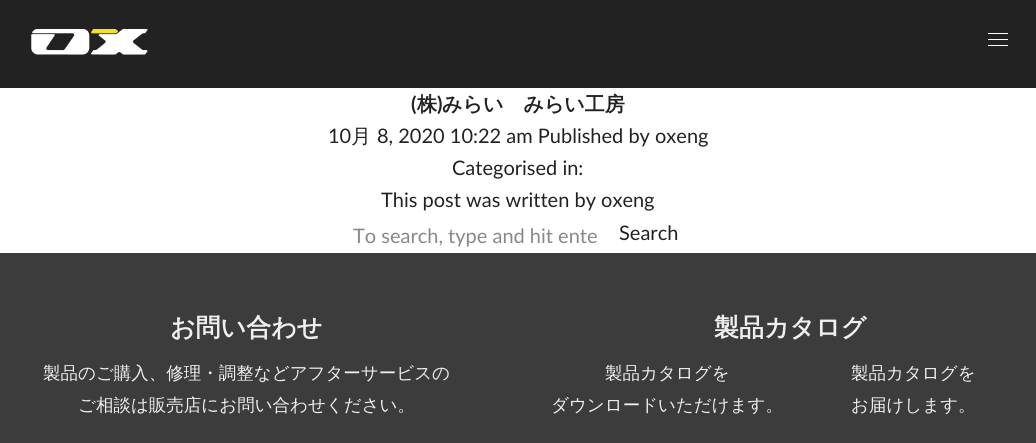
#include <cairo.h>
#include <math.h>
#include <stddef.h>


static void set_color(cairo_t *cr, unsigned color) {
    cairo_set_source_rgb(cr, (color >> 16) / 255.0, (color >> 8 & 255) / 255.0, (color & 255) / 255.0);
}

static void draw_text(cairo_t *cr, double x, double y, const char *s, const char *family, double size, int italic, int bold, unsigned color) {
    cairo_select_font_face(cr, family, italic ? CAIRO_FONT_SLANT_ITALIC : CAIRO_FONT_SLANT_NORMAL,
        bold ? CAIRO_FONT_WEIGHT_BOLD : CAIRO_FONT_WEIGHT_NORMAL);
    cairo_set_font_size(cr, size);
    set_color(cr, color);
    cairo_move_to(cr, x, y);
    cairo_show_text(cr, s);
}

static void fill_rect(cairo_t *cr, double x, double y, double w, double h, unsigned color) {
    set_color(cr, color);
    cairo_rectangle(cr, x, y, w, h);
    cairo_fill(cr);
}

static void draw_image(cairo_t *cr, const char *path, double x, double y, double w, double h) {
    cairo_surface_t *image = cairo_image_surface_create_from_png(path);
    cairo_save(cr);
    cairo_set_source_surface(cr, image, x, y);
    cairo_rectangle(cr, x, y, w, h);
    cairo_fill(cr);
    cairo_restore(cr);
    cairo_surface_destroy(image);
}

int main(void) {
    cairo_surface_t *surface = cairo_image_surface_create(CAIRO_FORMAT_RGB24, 1036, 443);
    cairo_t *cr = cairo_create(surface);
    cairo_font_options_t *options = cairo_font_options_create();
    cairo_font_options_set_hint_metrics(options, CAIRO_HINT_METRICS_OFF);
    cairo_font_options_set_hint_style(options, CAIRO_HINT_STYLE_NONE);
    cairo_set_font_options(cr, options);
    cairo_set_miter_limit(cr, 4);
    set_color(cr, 0xFFFFFF);
    cairo_paint(cr);
    fill_rect(cr, 0, 0, 1036, 88, 0x222222);
    fill_rect(cr, 988, 33, 20, 1, 0xFFFFFF);
    fill_rect(cr, 988, 39, 20, 1, 0xFFFFFF);
    fill_rect(cr, 988, 45, 20, 1, 0xFFFFFF);
    draw_image(cr, "assets/img1.png", 31, 29, 117, 26);
    draw_text(cr, 411, 111, "(", "Lato", 20, 0, 1, 0x222222);
    draw_text(cr, 417, 111, "株", "WenQuanYi Zen Hei", 20, 0, 1, 0x222222);
    draw_text(cr, 437, 111, ")", "Lato", 20, 0, 1, 0x222222);
    draw_text(cr, 442, 111, "みらい　みらい工房", "WenQuanYi Zen Hei", 20, 0, 1, 0x222222);
    draw_text(cr, 328, 143, "10", "Lato", 20, 0, 0, 0x222222);
    draw_text(cr, 351, 143, "月", "WenQuanYi Zen Hei Medium", 20, 0, 0, 0x222222);
    draw_text(cr, 377, 143, "8, 2020 10:22 am Published by oxeng", "Lato", 20, 0, 0, 0x222222);
    draw_text(cr, 452, 175, "Categorised in:", "Lato", 20, 0, 0, 0x222222);
    draw_text(cr, 381, 207, "This post was written by oxeng", "Lato", 20, 0, 0, 0x222222);
    draw_text(cr, 353, 243, "To search, type and hit ente", "Lato", 20, 0, 0, 0x888888);
    draw_text(cr, 619, 240, "Search", "Lato", 20, 0, 0, 0x222222);
    fill_rect(cr, 0, 253, 1036, 190, 0x3C3C3C);
    draw_text(cr, 170, 336, "お問い合わせ", "WenQuanYi Zen Hei", 25, 0, 1, 0xEFEFEF);
    draw_text(cr, 43, 379, "製品のご購入、修理・調整などアフターサービスの", "WenQuanYi Zen Hei Medium", 17.5, 0, 0, 0xEFEFEF);
    draw_text(cr, 78, 411, "ご相談は販売店にお問い合わせください。", "WenQuanYi Zen Hei Medium", 17.5, 0, 0, 0xEFEFEF);
    draw_text(cr, 714, 336, "製品カタログ", "WenQuanYi Zen Hei", 25, 0, 1, 0xEFEFEF);
    draw_text(cr, 605, 379, "製品カタログを", "WenQuanYi Zen Hei Medium", 17.5, 0, 0, 0xEFEFEF);
    draw_text(cr, 551, 411, "ダウンロードいただけます。", "WenQuanYi Zen Hei Medium", 17.5, 0, 0, 0xEFEFEF);
    draw_text(cr, 851, 379, "製品カタログを", "WenQuanYi Zen Hei Medium", 17.5, 0, 0, 0xEFEFEF);
    draw_text(cr, 851, 411, "お届けします。", "WenQuanYi Zen Hei Medium", 17.5, 0, 0, 0xEFEFEF);
    cairo_surface_write_to_png(surface, "output.png");
    cairo_font_options_destroy(options);
    cairo_destroy(cr);
    cairo_surface_destroy(surface);
    return 0;
}
